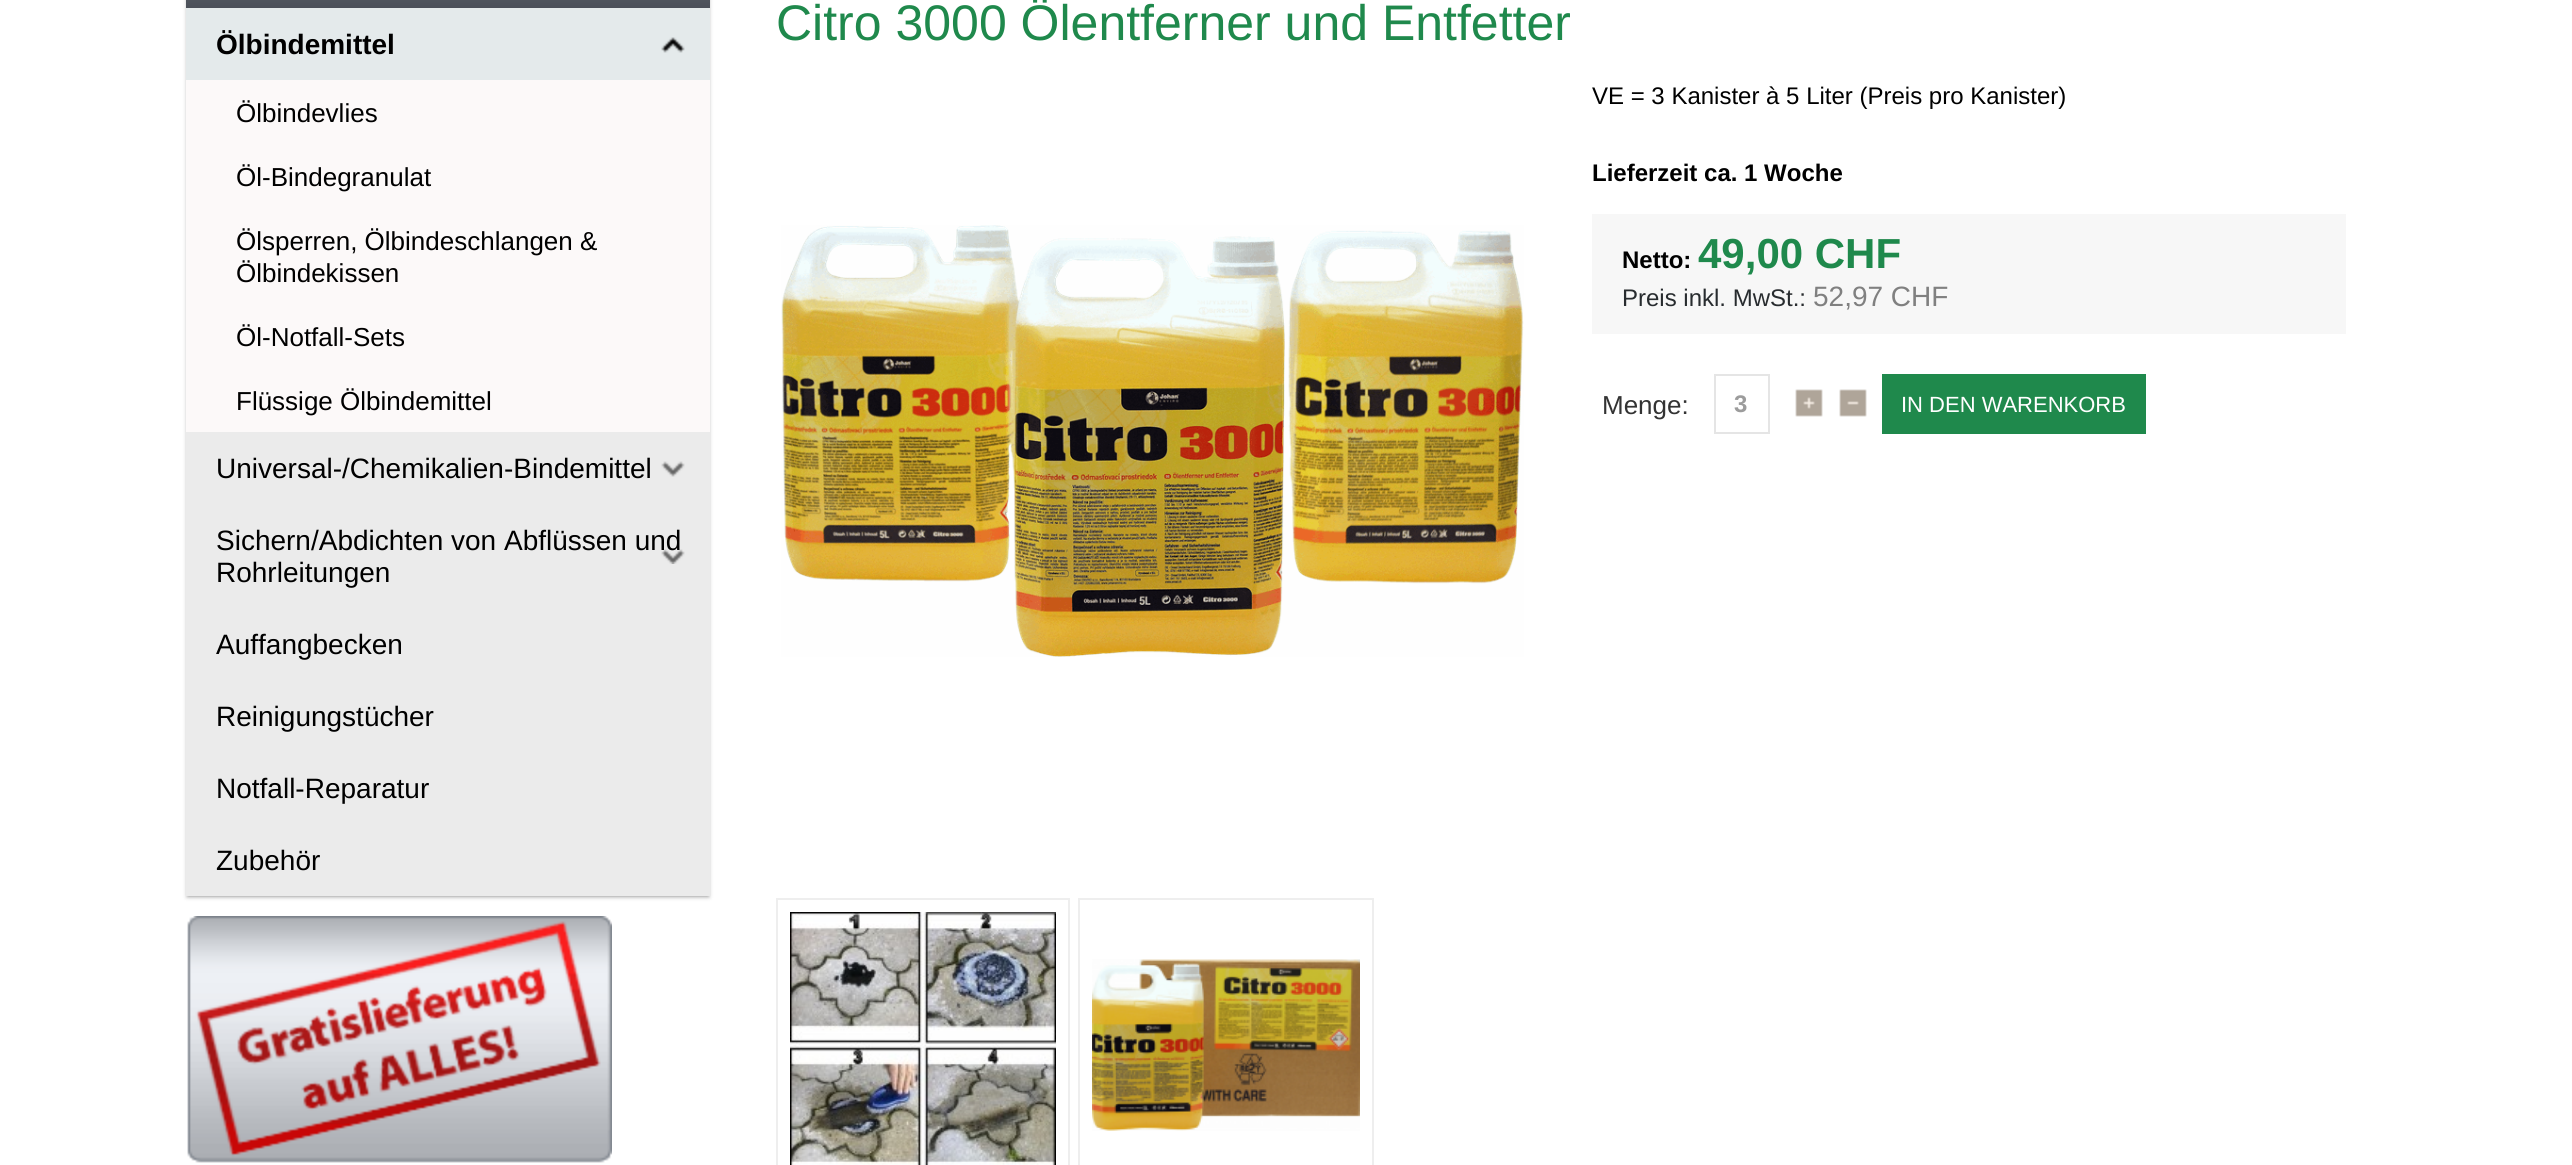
#include <cairo.h>
#include <math.h>
#include <stddef.h>


static void set_color(cairo_t *cr, unsigned color) {
    cairo_set_source_rgb(cr, (color >> 16) / 255.0, (color >> 8 & 255) / 255.0, (color & 255) / 255.0);
}

static void draw_text(cairo_t *cr, double x, double y, const char *s, const char *family, double size, int italic, int bold, unsigned color) {
    cairo_select_font_face(cr, family, italic ? CAIRO_FONT_SLANT_ITALIC : CAIRO_FONT_SLANT_NORMAL,
        bold ? CAIRO_FONT_WEIGHT_BOLD : CAIRO_FONT_WEIGHT_NORMAL);
    cairo_set_font_size(cr, size);
    set_color(cr, color);
    cairo_move_to(cr, x, y);
    cairo_show_text(cr, s);
}

static void fill_rect(cairo_t *cr, double x, double y, double w, double h, unsigned color) {
    set_color(cr, color);
    cairo_rectangle(cr, x, y, w, h);
    cairo_fill(cr);
}

static void rounded_rect(cairo_t *cr, double x, double y, double w, double h, double r) {
    cairo_new_sub_path(cr);
    cairo_arc(cr, x + w - r, y + h - r, r, 0, M_PI / 2);
    cairo_arc(cr, x + r, y + h - r, r, M_PI / 2, M_PI);
    cairo_arc(cr, x + r, y + r, r, M_PI, 1.5 * M_PI);
    cairo_arc(cr, x + w - r, y + r, r, 1.5 * M_PI, 2 * M_PI);
    cairo_close_path(cr);
}

static void draw_shadow(cairo_t *cr, double x, double y, double w, double h, double r, double blur, double alpha) {
    cairo_push_group_with_content(cr, CAIRO_CONTENT_ALPHA);
    cairo_set_operator(cr, CAIRO_OPERATOR_SOURCE);
    for (int i = 15; i >= -15 && fmin(w, h) + blur * i / 3 > 0; i -= 2) {
        double e = blur * i / 6;
        cairo_set_source_rgba(cr, 0, 0, 0, alpha * erfc((i - 1) / 8.5) / 2);
        rounded_rect(cr, x - e, y - e, w + 2 * e, h + 2 * e, fmax(0, fmin(r + e + blur * .6, fmin(w, h) / 2 + e)));
        cairo_fill(cr);
    }
    cairo_pattern_t *soft = cairo_pop_group(cr);
    cairo_mask(cr, soft);
    cairo_pattern_destroy(soft);
}

static void draw_image(cairo_t *cr, const char *path, double x, double y, double w, double h) {
    cairo_surface_t *image = cairo_image_surface_create_from_png(path);
    cairo_save(cr);
    cairo_set_source_surface(cr, image, x, y);
    cairo_rectangle(cr, x, y, w, h);
    cairo_fill(cr);
    cairo_restore(cr);
    cairo_surface_destroy(image);
}

int main(void) {
    cairo_surface_t *surface = cairo_image_surface_create(CAIRO_FORMAT_RGB24, 2572, 1165);
    cairo_t *cr = cairo_create(surface);
    cairo_font_options_t *options = cairo_font_options_create();
    cairo_font_options_set_hint_metrics(options, CAIRO_HINT_METRICS_OFF);
    cairo_font_options_set_hint_style(options, CAIRO_HINT_STYLE_NONE);
    cairo_set_font_options(cr, options);
    cairo_set_miter_limit(cr, 4);
    cairo_pattern_t *gradient;
    set_color(cr, 0xFFFFFF);
    cairo_paint(cr);
    set_color(cr, 0x000000);
    draw_shadow(cr, 186, -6, 524, 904, 0, 2, 0.1);
    draw_shadow(cr, 188, -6, 520, 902, 0, 2, 0.4);
    gradient = cairo_pattern_create_linear(448, -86, 448, 8);
    cairo_pattern_add_color_stop_rgba(gradient, 0, 0.486, 0.51, 0.545, 1);
    cairo_pattern_add_color_stop_rgba(gradient, 1, 0.294, 0.314, 0.349, 1);
    cairo_set_source(cr, gradient);
    cairo_pattern_destroy(gradient);
    cairo_rectangle(cr, 186, 0, 524, 8);
    cairo_fill(cr);
    fill_rect(cr, 186, 432, 524, 464, 0xEBEBEB);
    fill_rect(cr, 186, 8, 524, 72, 0xE4EAEB);
    draw_image(cr, "assets/img1.png", 661, 37, 24, 16);
    draw_text(cr, 216, 54, "Ölbindemittel", "Liberation Sans", 28, 0, 1, 0x000000);
    fill_rect(cr, 186, 80, 524, 352, 0xFCF9F9);
    draw_text(cr, 236, 122, "Ölbindevlies", "Liberation Sans", 26, 0, 0, 0x000000);
    draw_text(cr, 236, 186, "Öl-Bindegranulat", "Liberation Sans", 26, 0, 0, 0x000000);
    draw_text(cr, 236, 250, "Ölsperren, Ölbindeschlangen &", "Liberation Sans", 26, 0, 0, 0x000000);
    draw_text(cr, 236, 282, "Ölbindekissen", "Liberation Sans", 26, 0, 0, 0x000000);
    draw_text(cr, 236, 346, "Öl-Notfall-Sets", "Liberation Sans", 26, 0, 0, 0x000000);
    draw_text(cr, 236, 410, "Flüssige Ölbindemittel", "Liberation Sans", 26, 0, 0, 0x000000);
    draw_image(cr, "assets/img2.png", 661, 461, 24, 16);
    draw_text(cr, 216, 478, "Universal-/Chemikalien-Bindemittel", "Liberation Sans", 28, 0, 0, 0x000000);
    draw_image(cr, "assets/img3.png", 661, 549, 24, 15);
    draw_text(cr, 216, 550, "Sichern/Abdichten von Abflüssen und", "Liberation Sans", 28, 0, 0, 0x000000);
    draw_text(cr, 216, 582, "Rohrleitungen", "Liberation Sans", 28, 0, 0, 0x000000);
    draw_text(cr, 216, 654, "Auffangbecken", "Liberation Sans", 28, 0, 0, 0x000000);
    draw_text(cr, 216, 726, "Reinigungstücher", "Liberation Sans", 28, 0, 0, 0x000000);
    draw_text(cr, 216, 798, "Notfall-Reparatur", "Liberation Sans", 28, 0, 0, 0x000000);
    draw_text(cr, 216, 870, "Zubehör", "Liberation Sans", 28, 0, 0, 0x000000);
    draw_image(cr, "assets/img4.png", 187, 916, 425, 247);
    draw_text(cr, 776, 40, "Citro 3000 Ölentferner und Entfetter", "Liberation Sans", 50, 0, 0, 0x1F894C);
    draw_image(cr, "assets/img5.png", 781, 225, 743, 432);
    draw_text(cr, 1592, 104, "VE = 3 Kanister à 5 Liter (Preis pro Kanister)", "Liberation Sans", 24, 0, 0, 0x000000);
    draw_text(cr, 1592, 181, "Lieferzeit ca. 1 Woche", "Liberation Sans", 24, 0, 1, 0x000000);
    fill_rect(cr, 1592, 214, 754, 120, 0xF7F7F7);
    draw_text(cr, 1622, 268, "Netto:", "Liberation Sans", 24, 0, 1, 0x000000);
    draw_text(cr, 1698, 268, "49,00 CHF", "Liberation Sans", 42, 0, 1, 0x1F894C);
    draw_text(cr, 1622, 306, "Preis inkl. MwSt.:", "Liberation Sans", 24, 0, 0, 0x282C2F);
    draw_text(cr, 1813, 306, "52,97 CHF", "Liberation Sans", 28, 0, 0, 0x808080);
    draw_text(cr, 1602, 414, "Menge:", "Liberation Sans", 26, 0, 0, 0x333333);
    cairo_rectangle(cr, 1715, 375, 54, 58);
    set_color(cr, 0xE5E5E5);
    cairo_stroke(cr);
    draw_text(cr, 1734, 412, "3", "Liberation Sans", 24, 0, 1, 0x9C9C9C);
    draw_image(cr, "assets/img6.png", 1795, 389, 28, 28);
    draw_image(cr, "assets/img7.png", 1839, 389, 28, 28);
    fill_rect(cr, 1882, 374, 264, 60, 0x1F894C);
    draw_text(cr, 1901, 412, "IN DEN WARENKORB", "Liberation Sans", 22, 0, 0, 0xFFFFFF);
    cairo_rectangle(cr, 777, 899, 292, 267);
    set_color(cr, 0xEEEEEE);
    cairo_stroke(cr);
    cairo_rectangle(cr, 1079, 899, 294, 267);
    cairo_stroke(cr);
    draw_image(cr, "assets/img8.png", 790, 912, 266, 253);
    draw_image(cr, "assets/img9.png", 1092, 959, 268, 172);
    cairo_surface_write_to_png(surface, "output.png");
    cairo_font_options_destroy(options);
    cairo_destroy(cr);
    cairo_surface_destroy(surface);
    return 0;
}
